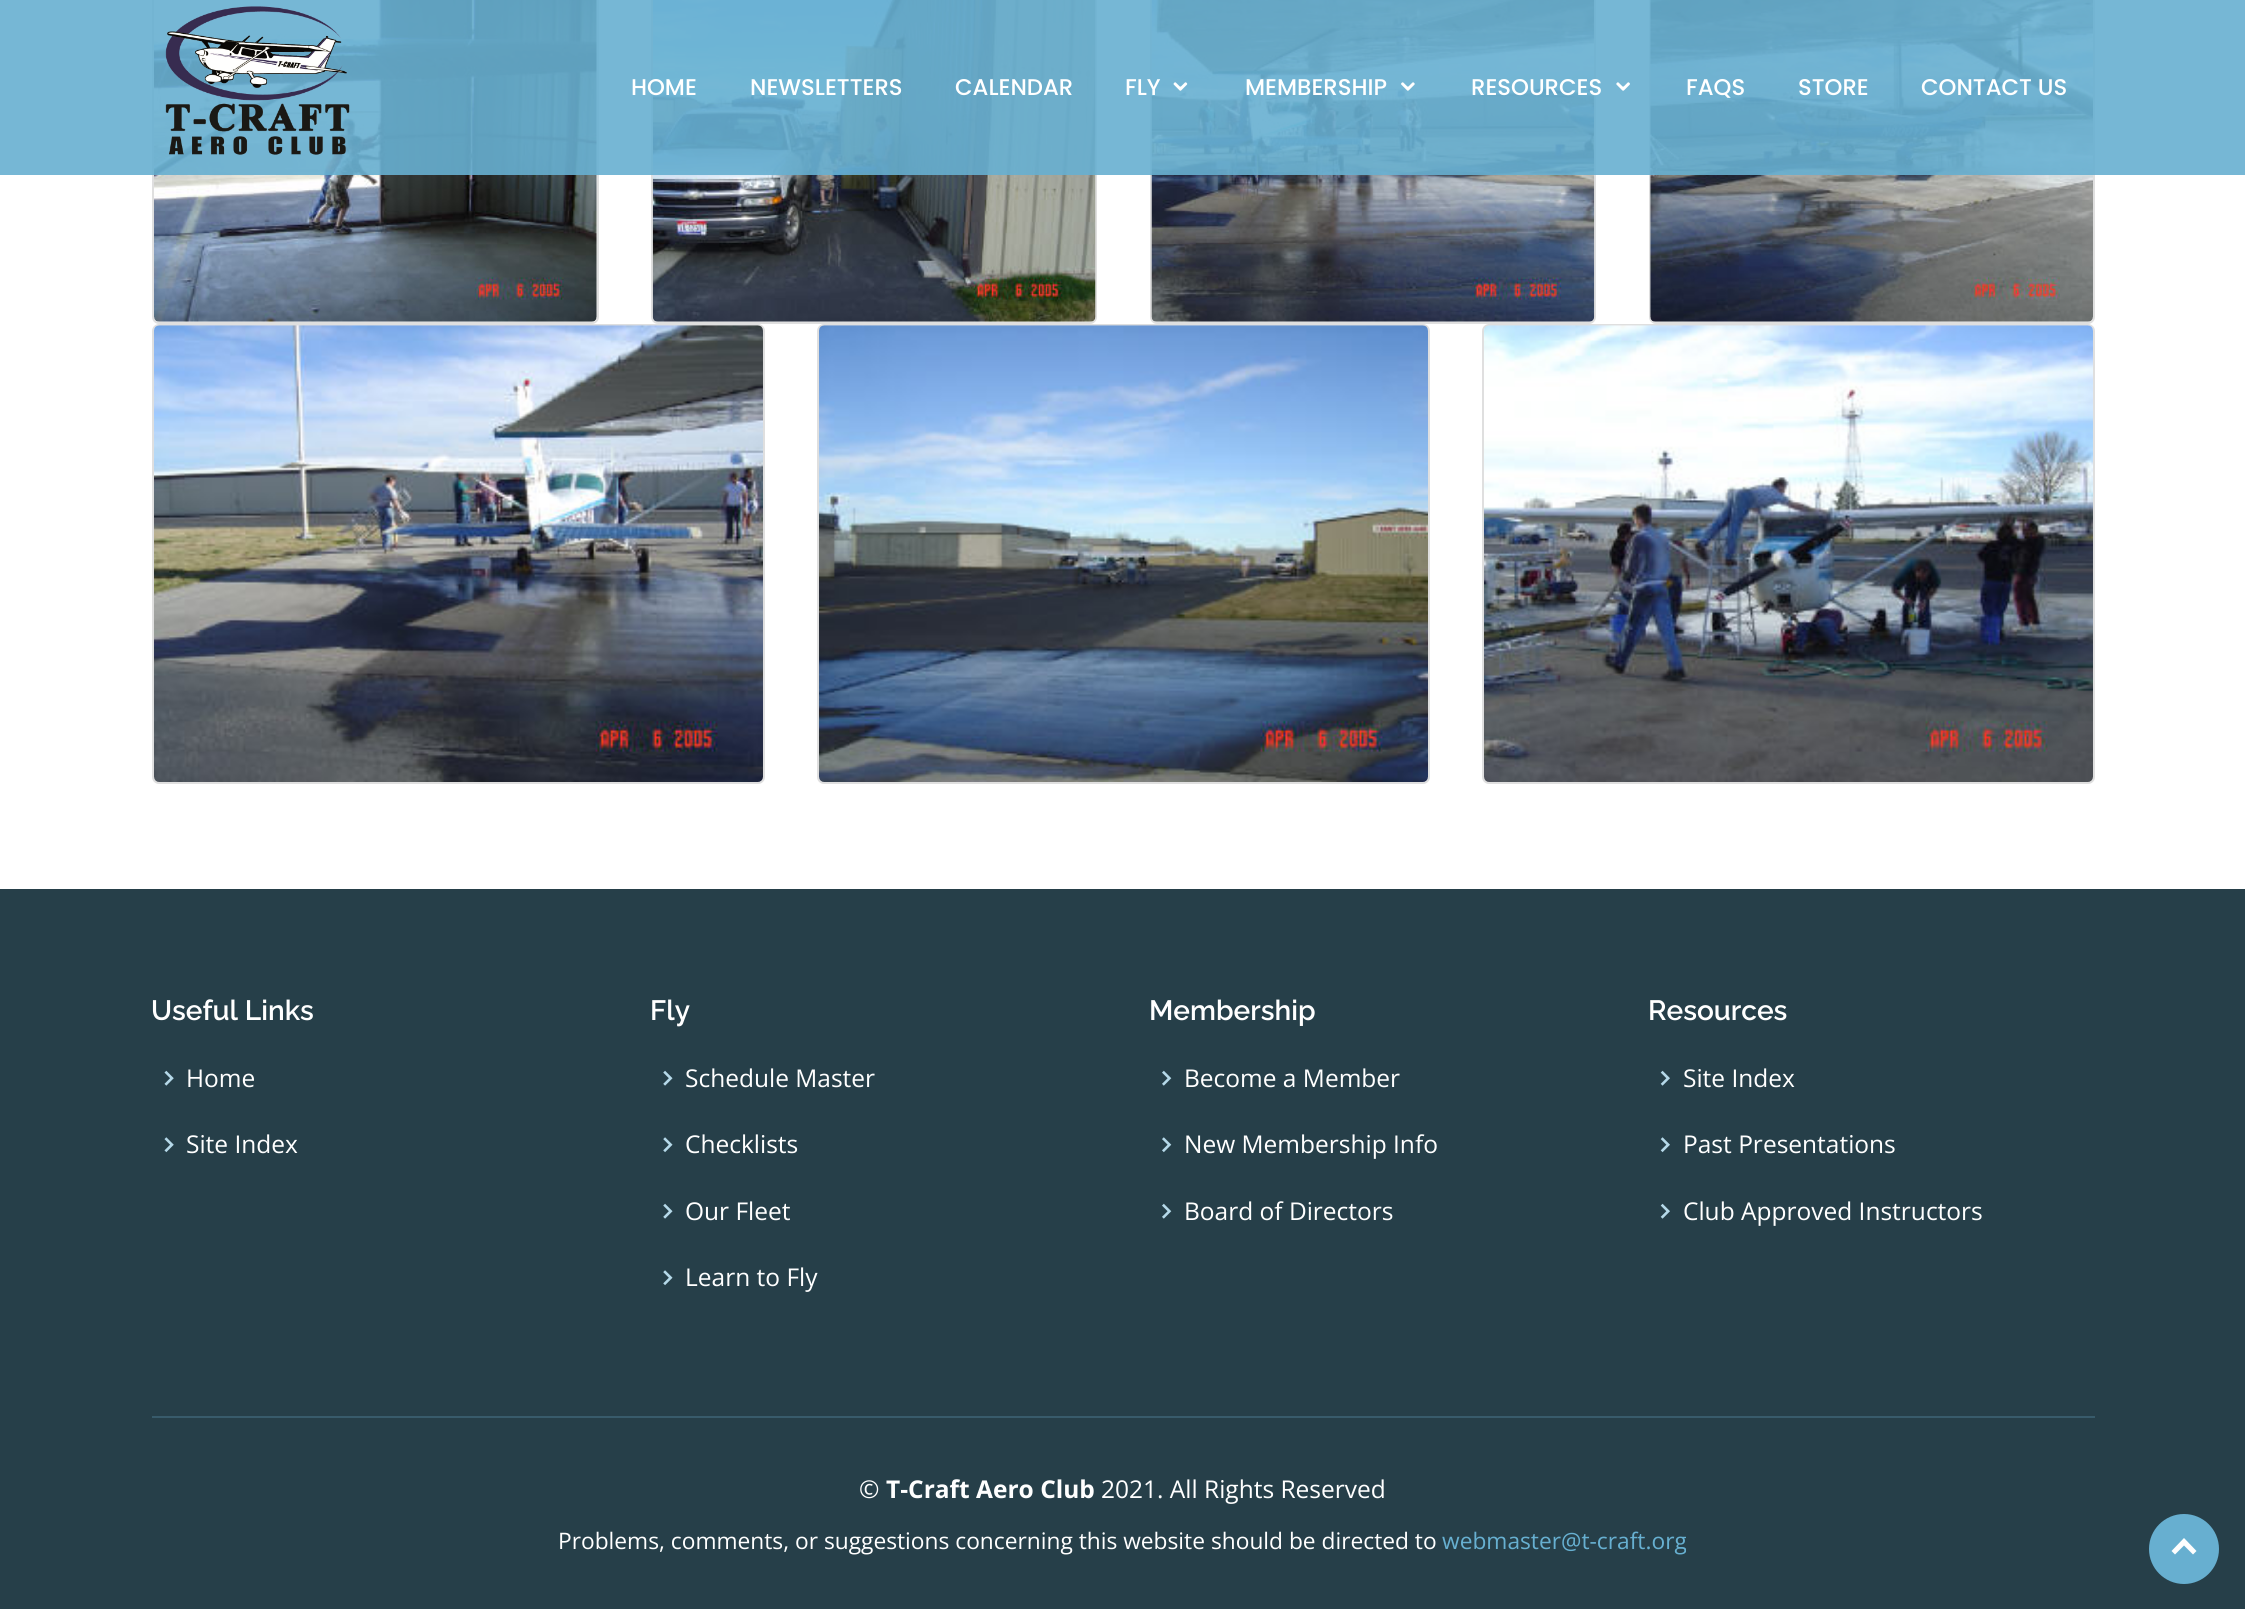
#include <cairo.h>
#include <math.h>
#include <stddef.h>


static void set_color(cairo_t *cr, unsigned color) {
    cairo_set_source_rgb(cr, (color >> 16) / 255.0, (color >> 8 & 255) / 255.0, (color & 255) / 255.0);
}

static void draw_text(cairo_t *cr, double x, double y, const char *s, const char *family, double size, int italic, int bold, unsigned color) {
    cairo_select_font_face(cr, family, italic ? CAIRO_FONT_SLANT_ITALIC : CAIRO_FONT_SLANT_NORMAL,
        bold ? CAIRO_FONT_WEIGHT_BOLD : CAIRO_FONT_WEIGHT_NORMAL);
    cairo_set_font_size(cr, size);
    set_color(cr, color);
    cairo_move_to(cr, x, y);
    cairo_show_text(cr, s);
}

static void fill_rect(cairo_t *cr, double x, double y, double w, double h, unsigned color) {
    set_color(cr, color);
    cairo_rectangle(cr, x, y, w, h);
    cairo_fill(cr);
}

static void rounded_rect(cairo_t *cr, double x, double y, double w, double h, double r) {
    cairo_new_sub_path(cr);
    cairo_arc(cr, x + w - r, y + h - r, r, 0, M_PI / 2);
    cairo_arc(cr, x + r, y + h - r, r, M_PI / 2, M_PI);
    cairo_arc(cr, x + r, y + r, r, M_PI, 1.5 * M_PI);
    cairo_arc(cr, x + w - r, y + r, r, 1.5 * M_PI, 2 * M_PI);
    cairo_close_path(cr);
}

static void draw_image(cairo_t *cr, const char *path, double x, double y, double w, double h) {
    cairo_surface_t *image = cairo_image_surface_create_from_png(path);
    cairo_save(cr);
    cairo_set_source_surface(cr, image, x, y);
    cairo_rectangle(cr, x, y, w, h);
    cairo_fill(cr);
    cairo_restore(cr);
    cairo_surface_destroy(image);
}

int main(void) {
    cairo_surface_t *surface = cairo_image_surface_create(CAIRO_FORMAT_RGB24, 2245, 1609);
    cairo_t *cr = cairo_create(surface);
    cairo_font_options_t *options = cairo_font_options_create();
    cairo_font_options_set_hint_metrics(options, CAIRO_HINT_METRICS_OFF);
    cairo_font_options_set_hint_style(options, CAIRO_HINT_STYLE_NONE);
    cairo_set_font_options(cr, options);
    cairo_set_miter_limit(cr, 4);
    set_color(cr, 0xFFFFFF);
    cairo_paint(cr);
    rounded_rect(cr, 153, -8, 445, 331, 6);
    set_color(cr, 0xDFDFDF);
    cairo_stroke(cr);
    draw_image(cr, "assets/img1.png", 154, 0, 443, 322);
    rounded_rect(cr, 652, -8, 444, 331, 6);
    cairo_stroke(cr);
    draw_image(cr, "assets/img2.png", 652, 0, 444, 322);
    rounded_rect(cr, 1151, -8, 444, 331, 6);
    cairo_stroke(cr);
    draw_image(cr, "assets/img3.png", 1151, 0, 444, 322);
    rounded_rect(cr, 1650, -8, 444, 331, 6);
    cairo_stroke(cr);
    draw_image(cr, "assets/img4.png", 1650, 0, 443, 322);
    rounded_rect(cr, 153, 325, 611, 458, 6);
    cairo_stroke(cr);
    draw_image(cr, "assets/img5.png", 154, 325, 609, 457);
    rounded_rect(cr, 818, 325, 611, 458, 6);
    cairo_stroke(cr);
    draw_image(cr, "assets/img6.png", 819, 325, 609, 457);
    rounded_rect(cr, 1483, 325, 611, 458, 6);
    cairo_stroke(cr);
    draw_image(cr, "assets/img7.png", 1484, 325, 609, 457);
    cairo_set_source_rgba(cr, 0.404, 0.69, 0.82, 0.9);
    cairo_rectangle(cr, 0, 0, 2245, 175);
    cairo_fill(cr);
    draw_image(cr, "assets/img8.png", 165, 6, 185, 149);
    draw_text(cr, 631, 95, "HOME", "Poppins Medium", 22.75, 0, 0, 0xFFFFFF);
    draw_text(cr, 750, 95, "NEWSLETTERS", "Poppins Medium", 22.75, 0, 0, 0xFFFFFF);
    draw_text(cr, 955, 95, "CALENDAR", "Poppins Medium", 22.75, 0, 0, 0xFFFFFF);
    draw_text(cr, 1125, 95, "FLY", "Poppins Medium", 22.75, 0, 0, 0xFFFFFF);
    draw_image(cr, "assets/img9.png", 1173, 82, 15, 9);
    draw_text(cr, 1245, 95, "MEMBERSHIP", "Poppins Medium", 22.75, 0, 0, 0xFFFFFF);
    draw_image(cr, "assets/img10.png", 1401, 82, 14, 9);
    draw_text(cr, 1471, 95, "RESOURCES", "Poppins Medium", 22.75, 0, 0, 0xFFFFFF);
    draw_image(cr, "assets/img11.png", 1616, 82, 14, 9);
    draw_text(cr, 1686, 95, "FAQS", "Poppins Medium", 22.75, 0, 0, 0xFFFFFF);
    draw_text(cr, 1798, 95, "STORE", "Poppins Medium", 22.75, 0, 0, 0xFFFFFF);
    draw_text(cr, 1921, 95, "CONTACT US", "Poppins Medium", 22.75, 0, 0, 0xFFFFFF);
    fill_rect(cr, 0, 889, 2245, 720, 0x263F49);
    draw_text(cr, 151, 1020, "Useful Links", "Raleway SemiBold", 28, 0, 0, 0xFFFFFF);
    draw_image(cr, "assets/img12.png", 164, 1070, 10, 16);
    draw_text(cr, 186, 1087, "Home", "Open Sans", 24.5, 0, 0, 0xFFFFFF);
    draw_image(cr, "assets/img13.png", 164, 1137, 10, 16);
    draw_text(cr, 186, 1153, "Site Index", "Open Sans", 24.5, 0, 0, 0xFFFFFF);
    draw_text(cr, 650, 1020, "Fly", "Raleway SemiBold", 28, 0, 0, 0xFFFFFF);
    draw_image(cr, "assets/img14.png", 663, 1070, 10, 16);
    draw_text(cr, 685, 1087, "Schedule Master", "Open Sans", 24.5, 0, 0, 0xFFFFFF);
    draw_image(cr, "assets/img15.png", 663, 1137, 10, 16);
    draw_text(cr, 685, 1153, "Checklists", "Open Sans", 24.5, 0, 0, 0xFFFFFF);
    draw_image(cr, "assets/img14.png", 663, 1203, 10, 16);
    draw_text(cr, 685, 1220, "Our Fleet", "Open Sans", 24.5, 0, 0, 0xFFFFFF);
    draw_image(cr, "assets/img15.png", 663, 1270, 10, 16);
    draw_text(cr, 685, 1286, "Learn to Fly", "Open Sans", 24.5, 0, 0, 0xFFFFFF);
    draw_text(cr, 1149, 1020, "Membership", "Raleway SemiBold", 28, 0, 0, 0xFFFFFF);
    draw_image(cr, "assets/img16.png", 1162, 1070, 10, 16);
    draw_text(cr, 1184, 1087, "Become a Member", "Open Sans", 24.5, 0, 0, 0xFFFFFF);
    draw_image(cr, "assets/img17.png", 1162, 1137, 10, 16);
    draw_text(cr, 1184, 1153, "New Membership Info", "Open Sans", 24.5, 0, 0, 0xFFFFFF);
    draw_image(cr, "assets/img16.png", 1162, 1203, 10, 16);
    draw_text(cr, 1184, 1220, "Board of Directors", "Open Sans", 24.5, 0, 0, 0xFFFFFF);
    draw_text(cr, 1648, 1020, "Resources", "Raleway SemiBold", 28, 0, 0, 0xFFFFFF);
    draw_image(cr, "assets/img18.png", 1660, 1070, 10, 16);
    draw_text(cr, 1683, 1087, "Site Index", "Open Sans", 24.5, 0, 0, 0xFFFFFF);
    draw_image(cr, "assets/img19.png", 1660, 1137, 10, 16);
    draw_text(cr, 1683, 1153, "Past Presentations", "Open Sans", 24.5, 0, 0, 0xFFFFFF);
    draw_image(cr, "assets/img18.png", 1660, 1203, 10, 16);
    draw_text(cr, 1683, 1220, "Club Approved Instructors", "Open Sans", 24.5, 0, 0, 0xFFFFFF);
    fill_rect(cr, 152, 1416, 1943, 2, 0x385B6B);
    draw_text(cr, 859, 1498, "©", "Open Sans", 24.5, 0, 0, 0xFFFFFF);
    draw_text(cr, 886, 1498, "T-Craft Aero Club", "Open Sans", 24.5, 0, 1, 0xFFFFFF);
    draw_text(cr, 1101, 1498, "2021. All Rights Reserved", "Open Sans", 24.5, 0, 0, 0xFFFFFF);
    draw_text(cr, 558, 1549, "Problems, comments, or suggestions concerning this website should be directed to", "Open Sans", 22.75, 0, 0, 0xFFFFFF);
    draw_text(cr, 1442, 1549, "webmaster@t-craft.org", "Open Sans", 22.75, 0, 0, 0x67B0D1);
    set_color(cr, 0x67AFD0);
    cairo_new_path(cr);
    cairo_arc(cr, 2184, 1549, 35, 0, 2 * M_PI);
    cairo_fill(cr);
    set_color(cr, 0xFEFEFE);
    cairo_new_path(cr);
    cairo_move_to(cr, 2175, 1554.5);
    cairo_line_to(cr, 2184, 1545.5);
    cairo_line_to(cr, 2193, 1554.5);
    cairo_line_to(cr, 2196.5, 1551);
    cairo_line_to(cr, 2184, 1538);
    cairo_line_to(cr, 2171.5, 1551);
    cairo_close_path(cr);
    cairo_fill(cr);
    cairo_surface_write_to_png(surface, "output.png");
    cairo_font_options_destroy(options);
    cairo_destroy(cr);
    cairo_surface_destroy(surface);
    return 0;
}
